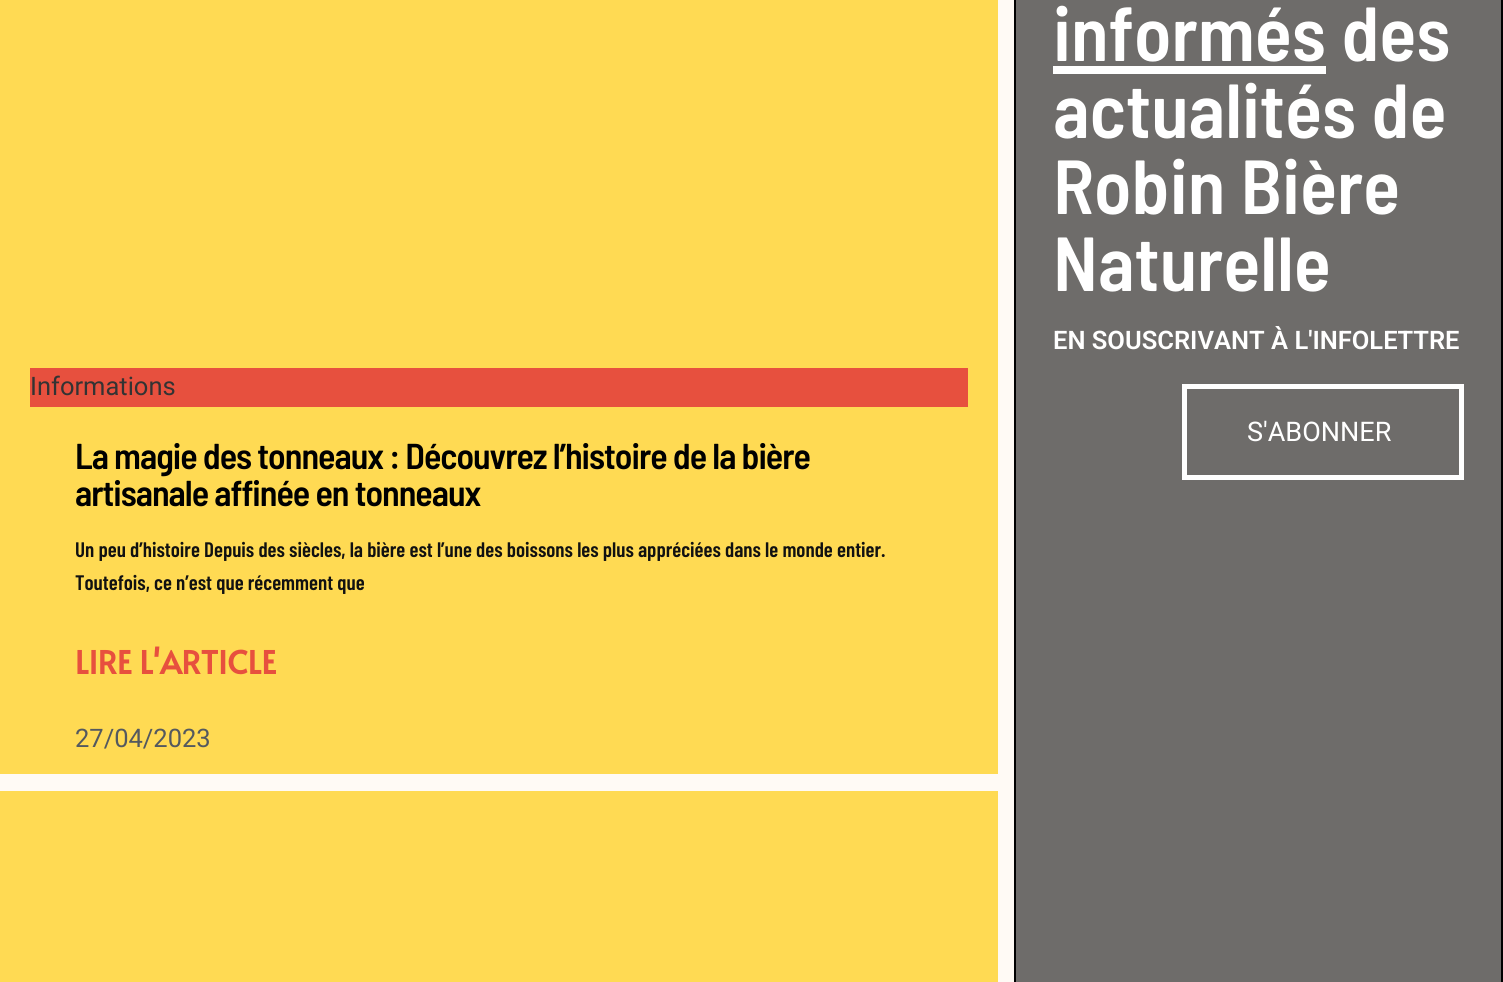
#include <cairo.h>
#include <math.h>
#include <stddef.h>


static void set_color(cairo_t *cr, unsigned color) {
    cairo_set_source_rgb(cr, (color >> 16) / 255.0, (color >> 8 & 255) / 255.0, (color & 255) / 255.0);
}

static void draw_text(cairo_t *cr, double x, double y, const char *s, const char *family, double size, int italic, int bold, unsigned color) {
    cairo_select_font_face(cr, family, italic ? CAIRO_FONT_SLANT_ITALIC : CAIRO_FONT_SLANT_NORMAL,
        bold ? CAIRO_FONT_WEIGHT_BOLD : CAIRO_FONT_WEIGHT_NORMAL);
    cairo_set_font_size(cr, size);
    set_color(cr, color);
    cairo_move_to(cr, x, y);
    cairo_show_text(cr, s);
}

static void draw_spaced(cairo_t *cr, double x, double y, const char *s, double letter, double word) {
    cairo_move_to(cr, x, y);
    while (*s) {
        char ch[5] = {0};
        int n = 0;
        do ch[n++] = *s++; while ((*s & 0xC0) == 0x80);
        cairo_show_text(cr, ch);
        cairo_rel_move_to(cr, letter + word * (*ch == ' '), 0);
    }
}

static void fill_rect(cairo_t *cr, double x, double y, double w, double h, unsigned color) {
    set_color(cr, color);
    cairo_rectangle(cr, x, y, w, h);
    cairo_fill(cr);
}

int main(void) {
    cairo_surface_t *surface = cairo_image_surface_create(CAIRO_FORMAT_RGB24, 1503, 982);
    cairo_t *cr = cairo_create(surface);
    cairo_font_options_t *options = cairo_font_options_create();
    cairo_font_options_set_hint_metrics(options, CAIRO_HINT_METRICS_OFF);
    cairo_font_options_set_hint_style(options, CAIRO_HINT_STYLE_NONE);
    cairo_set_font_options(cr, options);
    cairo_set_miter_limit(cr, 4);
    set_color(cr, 0xFFFAF5);
    cairo_paint(cr);
    cairo_rectangle(cr, 1015, -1, 487, 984);
    set_color(cr, 0x000000);
    cairo_stroke(cr);
    cairo_set_source_rgba(cr, 0, 0, 0, 0.57);
    cairo_rectangle(cr, 1016, 0, 485, 982);
    cairo_fill(cr);
    draw_text(cr, 1053, 61, "informés des", "Barlow Semi Condensed SemiBold", 76.5, 0, 0, 0xFFFFFF);
    fill_rect(cr, 1053, 66, 273, 8, 0xFFFFFF);
    draw_text(cr, 1053, 138, "actualités de", "Barlow Semi Condensed SemiBold", 76.5, 0, 0, 0xFFFFFF);
    draw_text(cr, 1053, 214, "Robin Bière", "Barlow Semi Condensed SemiBold", 76.5, 0, 0, 0xFFFFFF);
    draw_text(cr, 1053, 291, "Naturelle", "Barlow Semi Condensed SemiBold", 76.5, 0, 0, 0xFFFFFF);
    draw_text(cr, 1053, 349, "EN SOUSCRIVANT À L'INFOLETTRE", "Roboto SemiBold", 25.5, 0, 0, 0xFFFFFF);
    cairo_rectangle(cr, 1184.5, 386.5, 277, 91);
    cairo_set_line_width(cr, 5);
    cairo_stroke(cr);
    draw_text(cr, 1247, 441, "S'ABONNER", "Roboto", 27, 0, 0, 0xFFFFFF);
    fill_rect(cr, 0, 0, 998, 774, 0xFFDA53);
    fill_rect(cr, 30, 368, 938, 39, 0xE7503E);
    draw_text(cr, 30, 395, "Informations", "Roboto", 25.5, 0, 0, 0x333333);
    cairo_select_font_face(cr, "Barlow Semi Condensed SemiBold", CAIRO_FONT_SLANT_NORMAL, CAIRO_FONT_WEIGHT_NORMAL);
    cairo_set_font_size(cr, 36);
    set_color(cr, 0x000000);
    draw_spaced(cr, 75, 469, "La magie des tonneaux : Découvrez l’histoire de la bière", -1.02, 0);
    draw_spaced(cr, 75, 506, "artisanale affinée en tonneaux", -1.02, 0);
    draw_text(cr, 75, 557, "Un peu d’histoire Depuis des siècles, la bière est l’une des boissons les plus appréciées dans le monde entier.", "Barlow Condensed SemiBold", 21, 0, 0, 0x111111);
    draw_text(cr, 75, 590, "Toutefois, ce n’est que récemment que", "Barlow Condensed SemiBold", 21, 0, 0, 0x111111);
    draw_text(cr, 75, 674, "LIRE L'ARTICLE", "Alata", 31.5, 0, 1, 0xE7503E);
    draw_text(cr, 75, 747, "27/04/2023", "Roboto", 25.5, 0, 0, 0x54595F);
    fill_rect(cr, 0, 791, 998, 191, 0xFFDA53);
    cairo_surface_write_to_png(surface, "output.png");
    cairo_font_options_destroy(options);
    cairo_destroy(cr);
    cairo_surface_destroy(surface);
    return 0;
}
